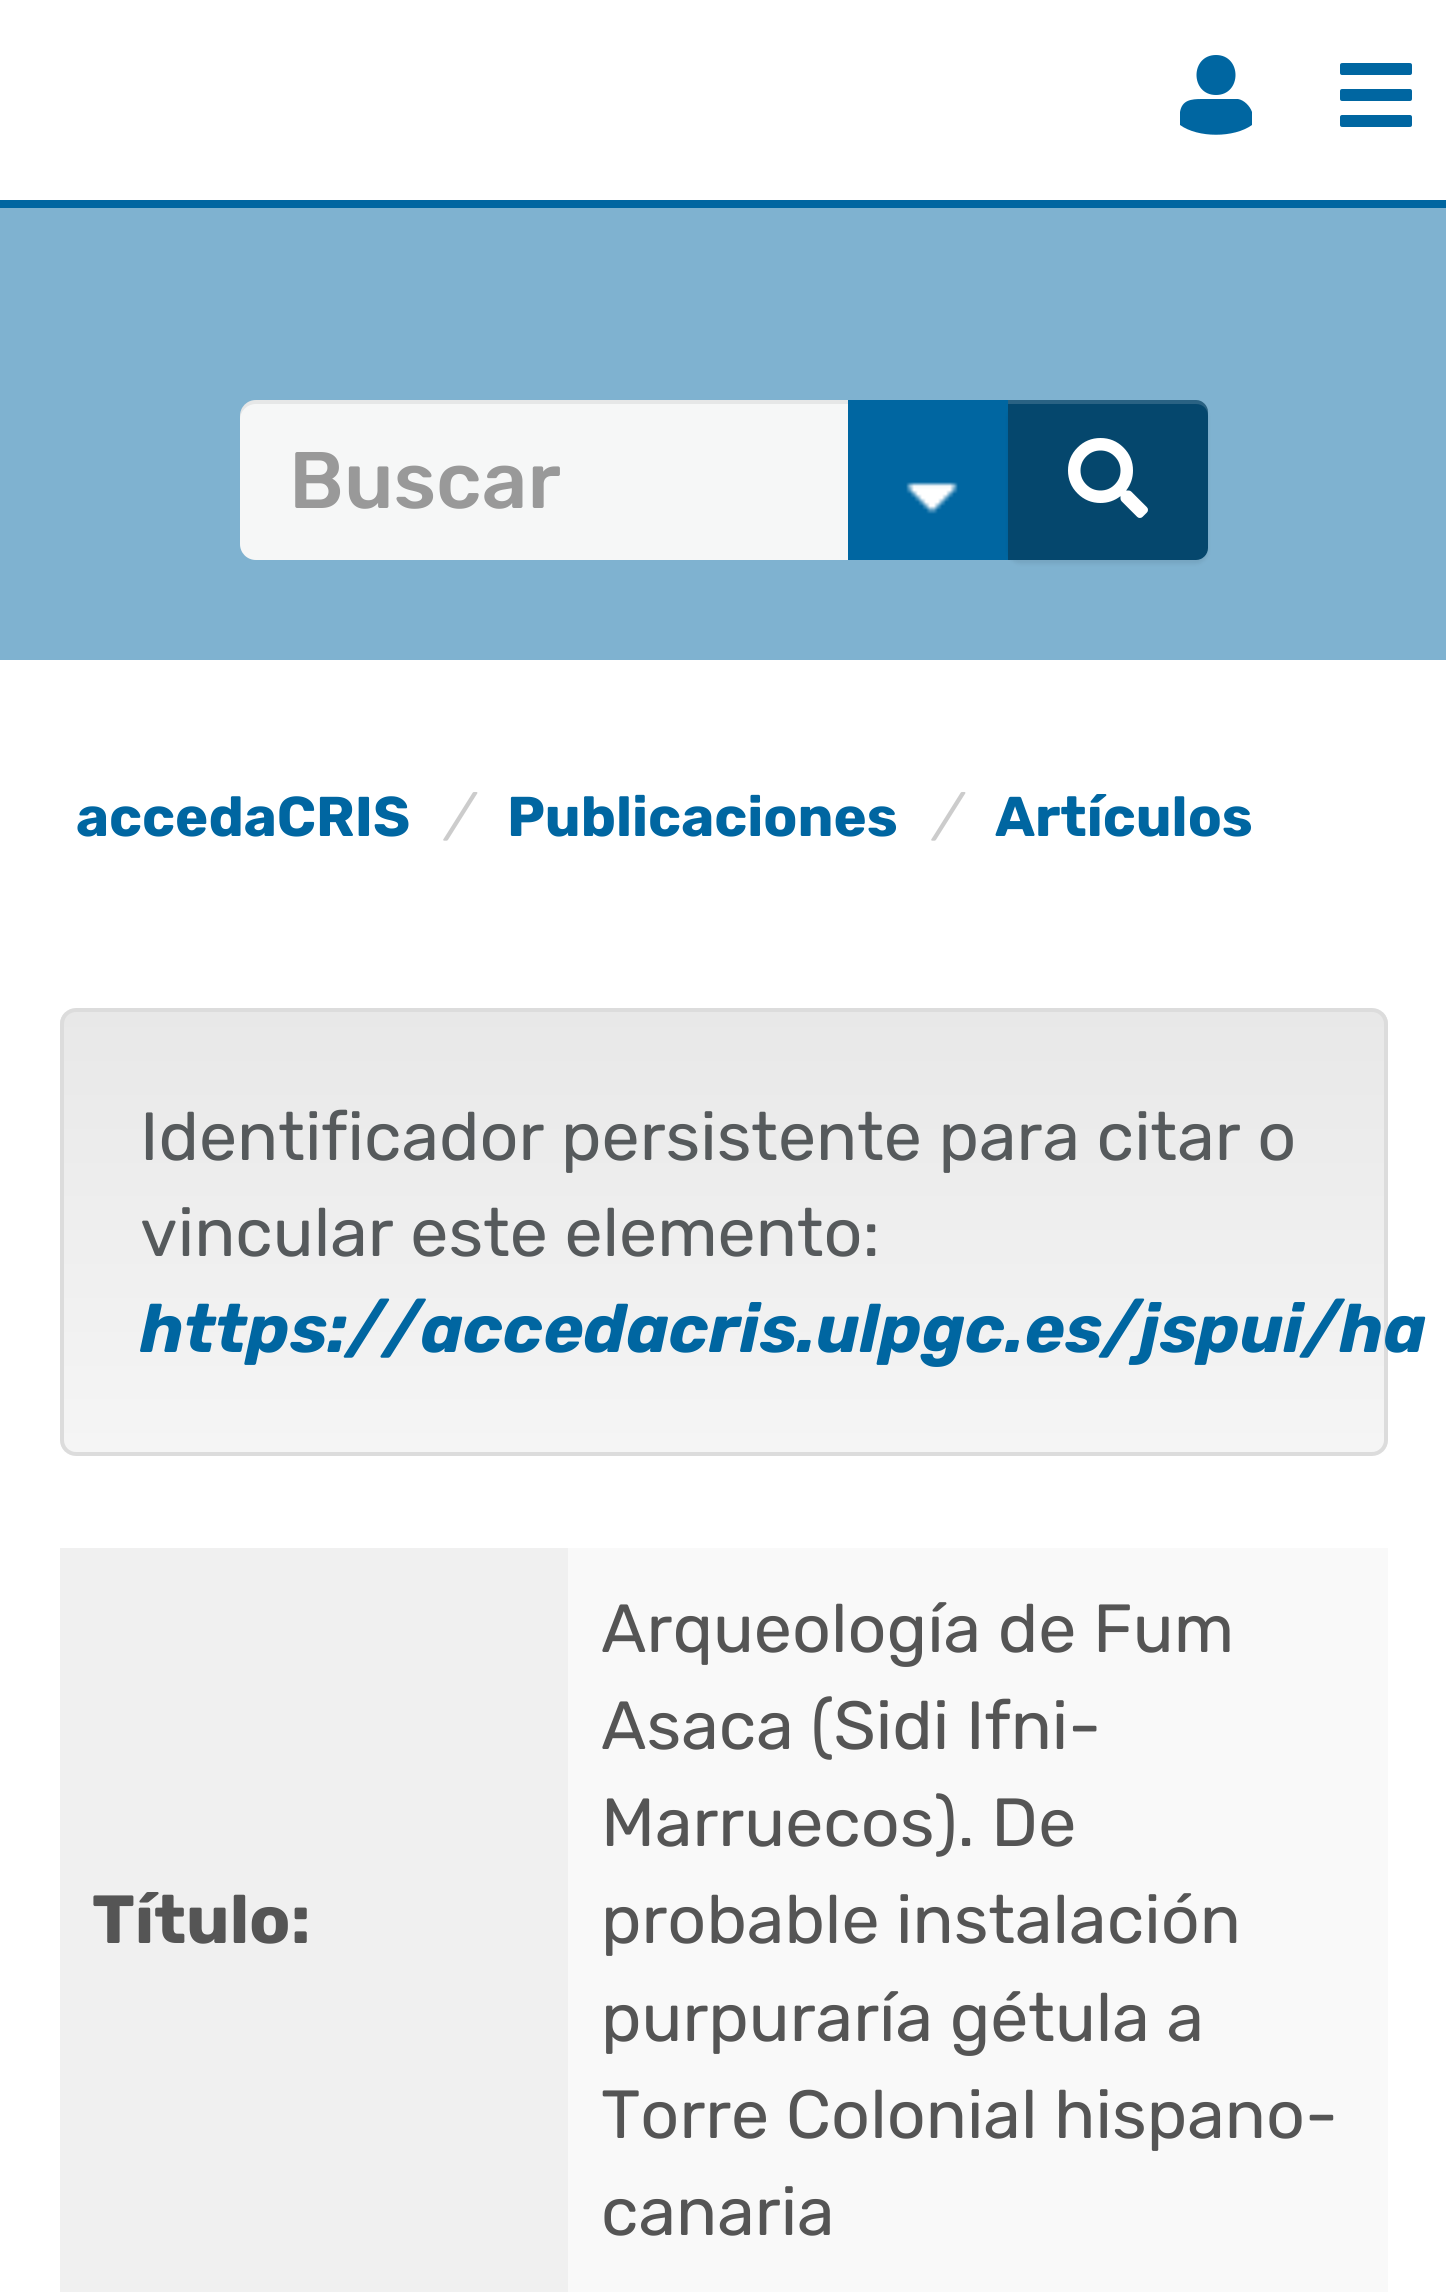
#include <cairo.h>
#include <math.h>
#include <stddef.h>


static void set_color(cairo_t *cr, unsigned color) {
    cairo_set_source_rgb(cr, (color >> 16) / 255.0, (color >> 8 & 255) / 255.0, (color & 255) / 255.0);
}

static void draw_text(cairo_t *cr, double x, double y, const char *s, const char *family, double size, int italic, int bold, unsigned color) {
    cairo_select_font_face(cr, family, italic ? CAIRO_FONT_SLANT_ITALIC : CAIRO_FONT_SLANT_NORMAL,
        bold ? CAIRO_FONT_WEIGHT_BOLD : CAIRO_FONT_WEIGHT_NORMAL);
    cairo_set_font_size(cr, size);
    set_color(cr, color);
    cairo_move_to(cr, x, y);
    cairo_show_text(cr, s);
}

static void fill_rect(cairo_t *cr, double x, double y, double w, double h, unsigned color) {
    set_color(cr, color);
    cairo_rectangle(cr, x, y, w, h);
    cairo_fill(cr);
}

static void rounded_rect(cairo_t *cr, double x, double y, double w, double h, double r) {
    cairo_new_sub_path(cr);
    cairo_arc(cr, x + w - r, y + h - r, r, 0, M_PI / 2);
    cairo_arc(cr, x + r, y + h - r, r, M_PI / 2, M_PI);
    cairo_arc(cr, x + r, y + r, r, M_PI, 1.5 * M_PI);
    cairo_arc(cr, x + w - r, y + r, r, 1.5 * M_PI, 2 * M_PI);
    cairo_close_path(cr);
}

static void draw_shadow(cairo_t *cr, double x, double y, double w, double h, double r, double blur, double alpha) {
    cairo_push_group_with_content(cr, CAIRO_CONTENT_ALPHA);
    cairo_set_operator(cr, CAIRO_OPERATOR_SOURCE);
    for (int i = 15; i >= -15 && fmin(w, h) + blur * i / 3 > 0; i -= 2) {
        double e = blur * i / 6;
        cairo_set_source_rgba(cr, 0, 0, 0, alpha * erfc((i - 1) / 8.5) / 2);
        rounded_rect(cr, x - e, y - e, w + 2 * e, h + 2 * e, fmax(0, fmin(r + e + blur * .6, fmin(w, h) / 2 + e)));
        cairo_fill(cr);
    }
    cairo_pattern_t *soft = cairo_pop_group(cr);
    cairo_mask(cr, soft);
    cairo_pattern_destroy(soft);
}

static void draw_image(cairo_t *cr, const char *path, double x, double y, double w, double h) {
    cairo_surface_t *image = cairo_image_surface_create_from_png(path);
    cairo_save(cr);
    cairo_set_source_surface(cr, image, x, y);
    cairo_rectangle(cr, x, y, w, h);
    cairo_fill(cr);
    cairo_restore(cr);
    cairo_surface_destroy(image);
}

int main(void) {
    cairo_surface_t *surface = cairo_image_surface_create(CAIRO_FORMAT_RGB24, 1446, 2292);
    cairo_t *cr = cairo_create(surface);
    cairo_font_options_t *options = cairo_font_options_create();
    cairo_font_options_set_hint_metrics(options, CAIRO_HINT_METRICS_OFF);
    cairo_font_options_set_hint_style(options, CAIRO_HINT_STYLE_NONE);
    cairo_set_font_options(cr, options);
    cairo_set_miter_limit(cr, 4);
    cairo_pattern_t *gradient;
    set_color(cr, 0xFFFFFF);
    cairo_paint(cr);
    fill_rect(cr, 0, 200, 1446, 8, 0x0066A1);
    cairo_new_path(cr);
    cairo_move_to(cr, 1216, 95);
    cairo_curve_to(cr, 1242, 95, 1242, 55, 1216, 55);
    cairo_curve_to(cr, 1190, 55, 1190, 95, 1216, 95);
    cairo_close_path(cr);
    cairo_move_to(cr, 1252, 125);
    cairo_line_to(cr, 1252, 112);
    cairo_curve_to(cr, 1250, 106, 1244, 100, 1238, 99);
    cairo_line_to(cr, 1202, 99);
    cairo_curve_to(cr, 1191, 99, 1182, 100, 1180, 112);
    cairo_line_to(cr, 1180, 125);
    cairo_curve_to(cr, 1198, 138, 1234, 138, 1252, 125);
    cairo_close_path(cr);
    cairo_fill(cr);
    draw_image(cr, "assets/img1.png", 1340, 63, 72, 64);
    fill_rect(cr, 0, 208, 1446, 452, 0x7FB2D0);
    set_color(cr, 0xF6F7F7);
    cairo_new_path(cr);
    cairo_move_to(cr, 256, 400);
    cairo_line_to(cr, 848, 400);
    cairo_line_to(cr, 848, 560);
    cairo_line_to(cr, 256, 560);
    cairo_curve_to(cr, 247, 560, 240, 553, 240, 544);
    cairo_line_to(cr, 240, 416);
    cairo_curve_to(cr, 240, 407, 247, 400, 256, 400);
    cairo_close_path(cr);
    cairo_fill(cr);
    cairo_set_source_rgba(cr, 0, 0, 0, 0.07);
    cairo_new_path(cr);
    cairo_move_to(cr, 256, 404);
    cairo_line_to(cr, 848, 404);
    cairo_line_to(cr, 848, 400);
    cairo_line_to(cr, 256, 400);
    cairo_curve_to(cr, 247, 400, 240, 407, 240, 416);
    cairo_line_to(cr, 240, 420);
    cairo_curve_to(cr, 240, 411, 247, 404, 256, 404);
    cairo_close_path(cr);
    cairo_fill(cr);
    draw_text(cr, 289, 508, "Buscar", "Rubik Medium", 80, 0, 0, 0x999999);
    fill_rect(cr, 848, 400, 160, 160, 0x0066A1);
    draw_image(cr, "assets/img2.png", 906, 482, 52, 32);
    set_color(cr, 0x000000);
    draw_shadow(cr, 1008, 404, 200, 160, 12, 2, 0.07);
    set_color(cr, 0x05476D);
    cairo_new_path(cr);
    cairo_move_to(cr, 1008, 400);
    cairo_line_to(cr, 1196, 400);
    cairo_curve_to(cr, 1202.5, 400, 1208, 405.5, 1208, 412);
    cairo_line_to(cr, 1208, 548);
    cairo_curve_to(cr, 1208, 554.5, 1202.5, 560, 1196, 560);
    cairo_line_to(cr, 1008, 560);
    cairo_close_path(cr);
    cairo_fill(cr);
    cairo_set_source_rgba(cr, 1, 1, 1, 0.15);
    cairo_new_path(cr);
    cairo_move_to(cr, 1008, 404);
    cairo_line_to(cr, 1196, 404);
    cairo_curve_to(cr, 1203, 404, 1208, 409, 1208, 416);
    cairo_line_to(cr, 1208, 412);
    cairo_curve_to(cr, 1208, 405, 1203, 400, 1196, 400);
    cairo_line_to(cr, 1008, 400);
    cairo_close_path(cr);
    cairo_fill(cr);
    draw_image(cr, "assets/img3.png", 1068, 438, 80, 80);
    draw_text(cr, 76, 836, "accedaCRIS", "Rubik", 56, 0, 1, 0x0066A1);
    draw_text(cr, 446, 836, "/", "Rubik", 56, 1, 0, 0xCCCCCC);
    draw_text(cr, 507, 836, "Publicaciones", "Rubik", 56, 0, 1, 0x0066A1);
    draw_text(cr, 934, 836, "/", "Rubik", 56, 1, 0, 0xCCCCCC);
    draw_text(cr, 995, 836, "Artículos", "Rubik", 56, 0, 1, 0x0066A1);
    cairo_save(cr);
    rounded_rect(cr, 60, 1008, 1328, 448, 16);
    cairo_clip(cr);
    gradient = cairo_pattern_create_linear(724, 1012, 724, 1452);
    cairo_pattern_add_color_stop_rgba(gradient, 0, 0.91, 0.91, 0.91, 1);
    cairo_pattern_add_color_stop_rgba(gradient, 1, 0.961, 0.961, 0.961, 1);
    cairo_set_source(cr, gradient);
    cairo_pattern_destroy(gradient);
    cairo_rectangle(cr, 60, 1012, 1328, 440);
    cairo_fill(cr);
    cairo_restore(cr);
    rounded_rect(cr, 62, 1010, 1324, 444, 14);
    set_color(cr, 0xDCDCDC);
    cairo_set_line_width(cr, 4);
    cairo_stroke(cr);
    draw_text(cr, 140, 1160, "Identificador persistente para citar o", "Rubik", 68, 0, 0, 0x565A5C);
    draw_text(cr, 140, 1256, "vincular este elemento:", "Rubik", 68, 0, 0, 0x565A5C);
    draw_text(cr, 140, 1352, "https://accedacris.ulpgc.es/jspui/ha", "Rubik", 68, 1, 1, 0x0066A1);
    fill_rect(cr, 60, 1548, 508, 744, 0xF0F0F0);
    draw_text(cr, 92, 1943, "Título:", "Rubik", 68, 0, 1, 0x555555);
    fill_rect(cr, 568, 1548, 820, 744, 0xF9F9F9);
    draw_text(cr, 601, 1652, "Arqueología de Fum", "Rubik", 68, 0, 0, 0x555555);
    draw_text(cr, 601, 1749, "Asaca (Sidi Ifni-", "Rubik", 68, 0, 0, 0x555555);
    draw_text(cr, 601, 1846, "Marruecos). De", "Rubik", 68, 0, 0, 0x555555);
    draw_text(cr, 601, 1943, "probable instalación", "Rubik", 68, 0, 0, 0x555555);
    draw_text(cr, 601, 2041, "purpuraría gétula a", "Rubik", 68, 0, 0, 0x555555);
    draw_text(cr, 601, 2138, "Torre Colonial hispano-", "Rubik", 68, 0, 0, 0x555555);
    draw_text(cr, 601, 2235, "canaria", "Rubik", 68, 0, 0, 0x555555);
    cairo_surface_write_to_png(surface, "output.png");
    cairo_font_options_destroy(options);
    cairo_destroy(cr);
    cairo_surface_destroy(surface);
    return 0;
}
